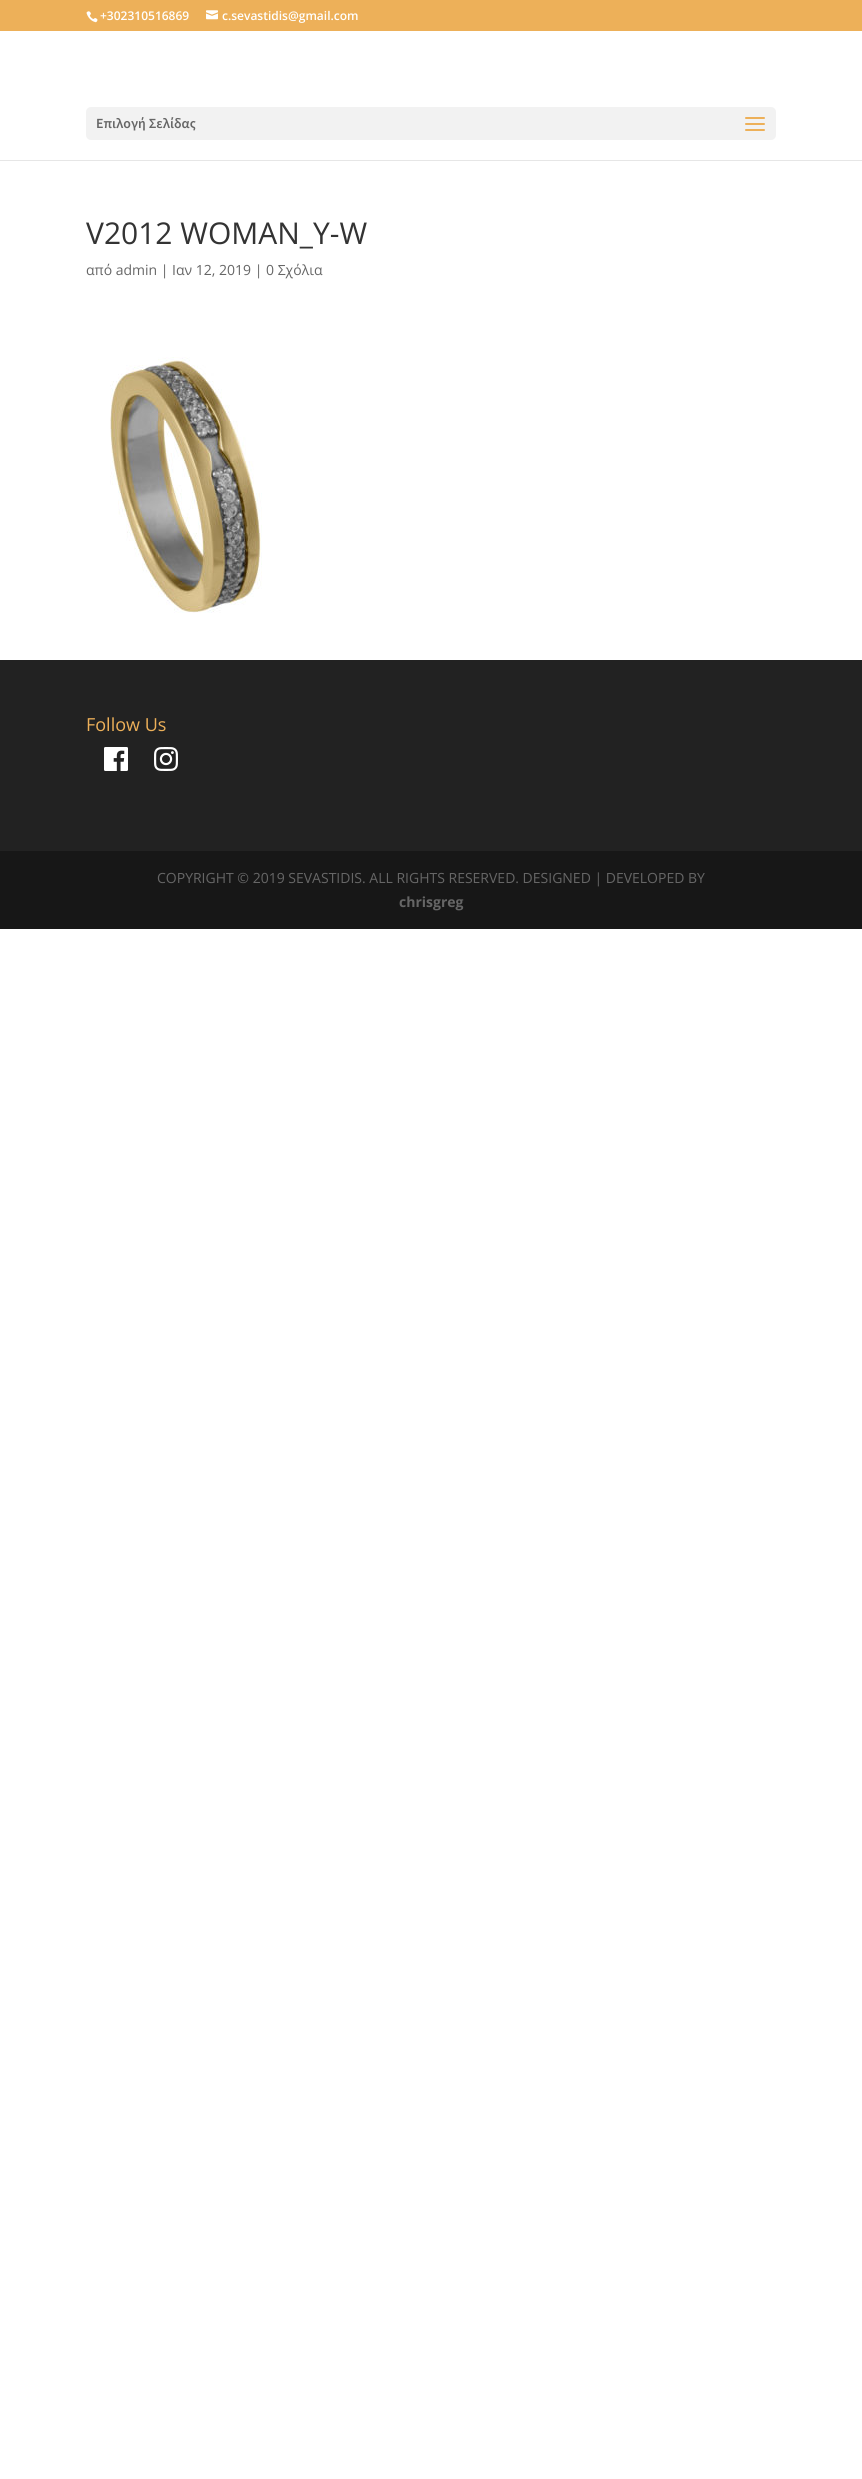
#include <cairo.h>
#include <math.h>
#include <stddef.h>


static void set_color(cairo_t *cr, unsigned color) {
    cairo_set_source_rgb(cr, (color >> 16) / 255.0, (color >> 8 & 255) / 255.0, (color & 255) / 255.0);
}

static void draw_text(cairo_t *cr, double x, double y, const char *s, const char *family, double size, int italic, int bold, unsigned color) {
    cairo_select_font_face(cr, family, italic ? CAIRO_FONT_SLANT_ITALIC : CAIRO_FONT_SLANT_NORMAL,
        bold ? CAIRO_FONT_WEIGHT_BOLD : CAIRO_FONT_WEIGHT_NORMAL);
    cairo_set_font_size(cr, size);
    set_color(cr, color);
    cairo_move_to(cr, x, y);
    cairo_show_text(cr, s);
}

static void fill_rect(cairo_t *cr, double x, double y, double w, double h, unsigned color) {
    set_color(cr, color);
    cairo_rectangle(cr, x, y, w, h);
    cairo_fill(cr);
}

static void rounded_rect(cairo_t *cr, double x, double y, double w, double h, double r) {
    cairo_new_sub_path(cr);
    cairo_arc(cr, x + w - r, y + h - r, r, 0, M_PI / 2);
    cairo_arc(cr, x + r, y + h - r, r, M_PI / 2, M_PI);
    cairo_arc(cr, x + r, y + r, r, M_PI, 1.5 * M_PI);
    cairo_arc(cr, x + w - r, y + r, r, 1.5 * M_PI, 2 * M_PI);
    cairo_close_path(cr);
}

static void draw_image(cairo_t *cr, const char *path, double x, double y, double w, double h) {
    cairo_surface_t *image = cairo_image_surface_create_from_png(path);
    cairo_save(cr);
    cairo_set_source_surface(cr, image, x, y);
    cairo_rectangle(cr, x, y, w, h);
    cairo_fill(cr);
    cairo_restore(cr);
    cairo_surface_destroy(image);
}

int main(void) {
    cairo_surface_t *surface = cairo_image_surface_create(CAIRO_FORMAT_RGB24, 862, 2479);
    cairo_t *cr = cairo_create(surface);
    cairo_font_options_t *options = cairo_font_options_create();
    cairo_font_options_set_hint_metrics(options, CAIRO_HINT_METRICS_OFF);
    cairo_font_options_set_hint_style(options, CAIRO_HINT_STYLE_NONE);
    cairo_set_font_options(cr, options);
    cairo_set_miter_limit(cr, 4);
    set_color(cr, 0xFFFFFF);
    cairo_paint(cr);
    fill_rect(cr, 0, 0, 862, 31, 0xEDB059);
    draw_image(cr, "assets/img1.png", 86, 11, 12, 12);
    draw_text(cr, 100, 20, "+302310516869", "Open Sans SemiBold", 12, 0, 0, 0xFFFFFF);
    draw_image(cr, "assets/img2.png", 206, 10, 12, 10);
    draw_text(cr, 222, 20, "c.sevastidis@gmail.com", "Open Sans SemiBold", 12, 0, 0, 0xFFFFFF);
    fill_rect(cr, 0, 160, 862, 1, 0xE6E6E6);
    set_color(cr, 0xF2F2F2);
    rounded_rect(cr, 86, 107, 690, 33, 5);
    cairo_fill(cr);
    draw_text(cr, 96, 128, "Επιλογή Σελίδας", "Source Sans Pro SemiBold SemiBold", 14, 0, 0, 0x666666);
    draw_image(cr, "assets/img3.png", 745, 117, 20, 14);
    draw_text(cr, 86, 244, "V2012 WOMAN_Y-W", "Open Sans", 30, 0, 0, 0x333333);
    draw_text(cr, 86, 275, "από admin | Ιαν 12, 2019 | 0 Σχόλια", "Open Sans", 14, 0, 0, 0x666666);
    draw_image(cr, "assets/img4.png", 110, 357, 152, 256);
    fill_rect(cr, 0, 660, 862, 191, 0x222222);
    draw_text(cr, 86, 731, "Follow Us", "Open Sans", 18, 0, 0, 0xEDB059);
    draw_image(cr, "assets/img5.png", 104, 747, 24, 24);
    draw_image(cr, "assets/img6.png", 154, 747, 24, 24);
    fill_rect(cr, 0, 851, 862, 78, 0x171717);
    draw_text(cr, 157, 883, "COPYRIGHT © 2019 SEVASTIDIS. ALL RIGHTS RESERVED. DESIGNED | DEVELOPED BY", "Open Sans", 14, 0, 0, 0x666666);
    draw_text(cr, 399, 907, "chrisgreg", "Open Sans", 14, 0, 1, 0x666666);
    cairo_surface_write_to_png(surface, "output.png");
    cairo_font_options_destroy(options);
    cairo_destroy(cr);
    cairo_surface_destroy(surface);
    return 0;
}
